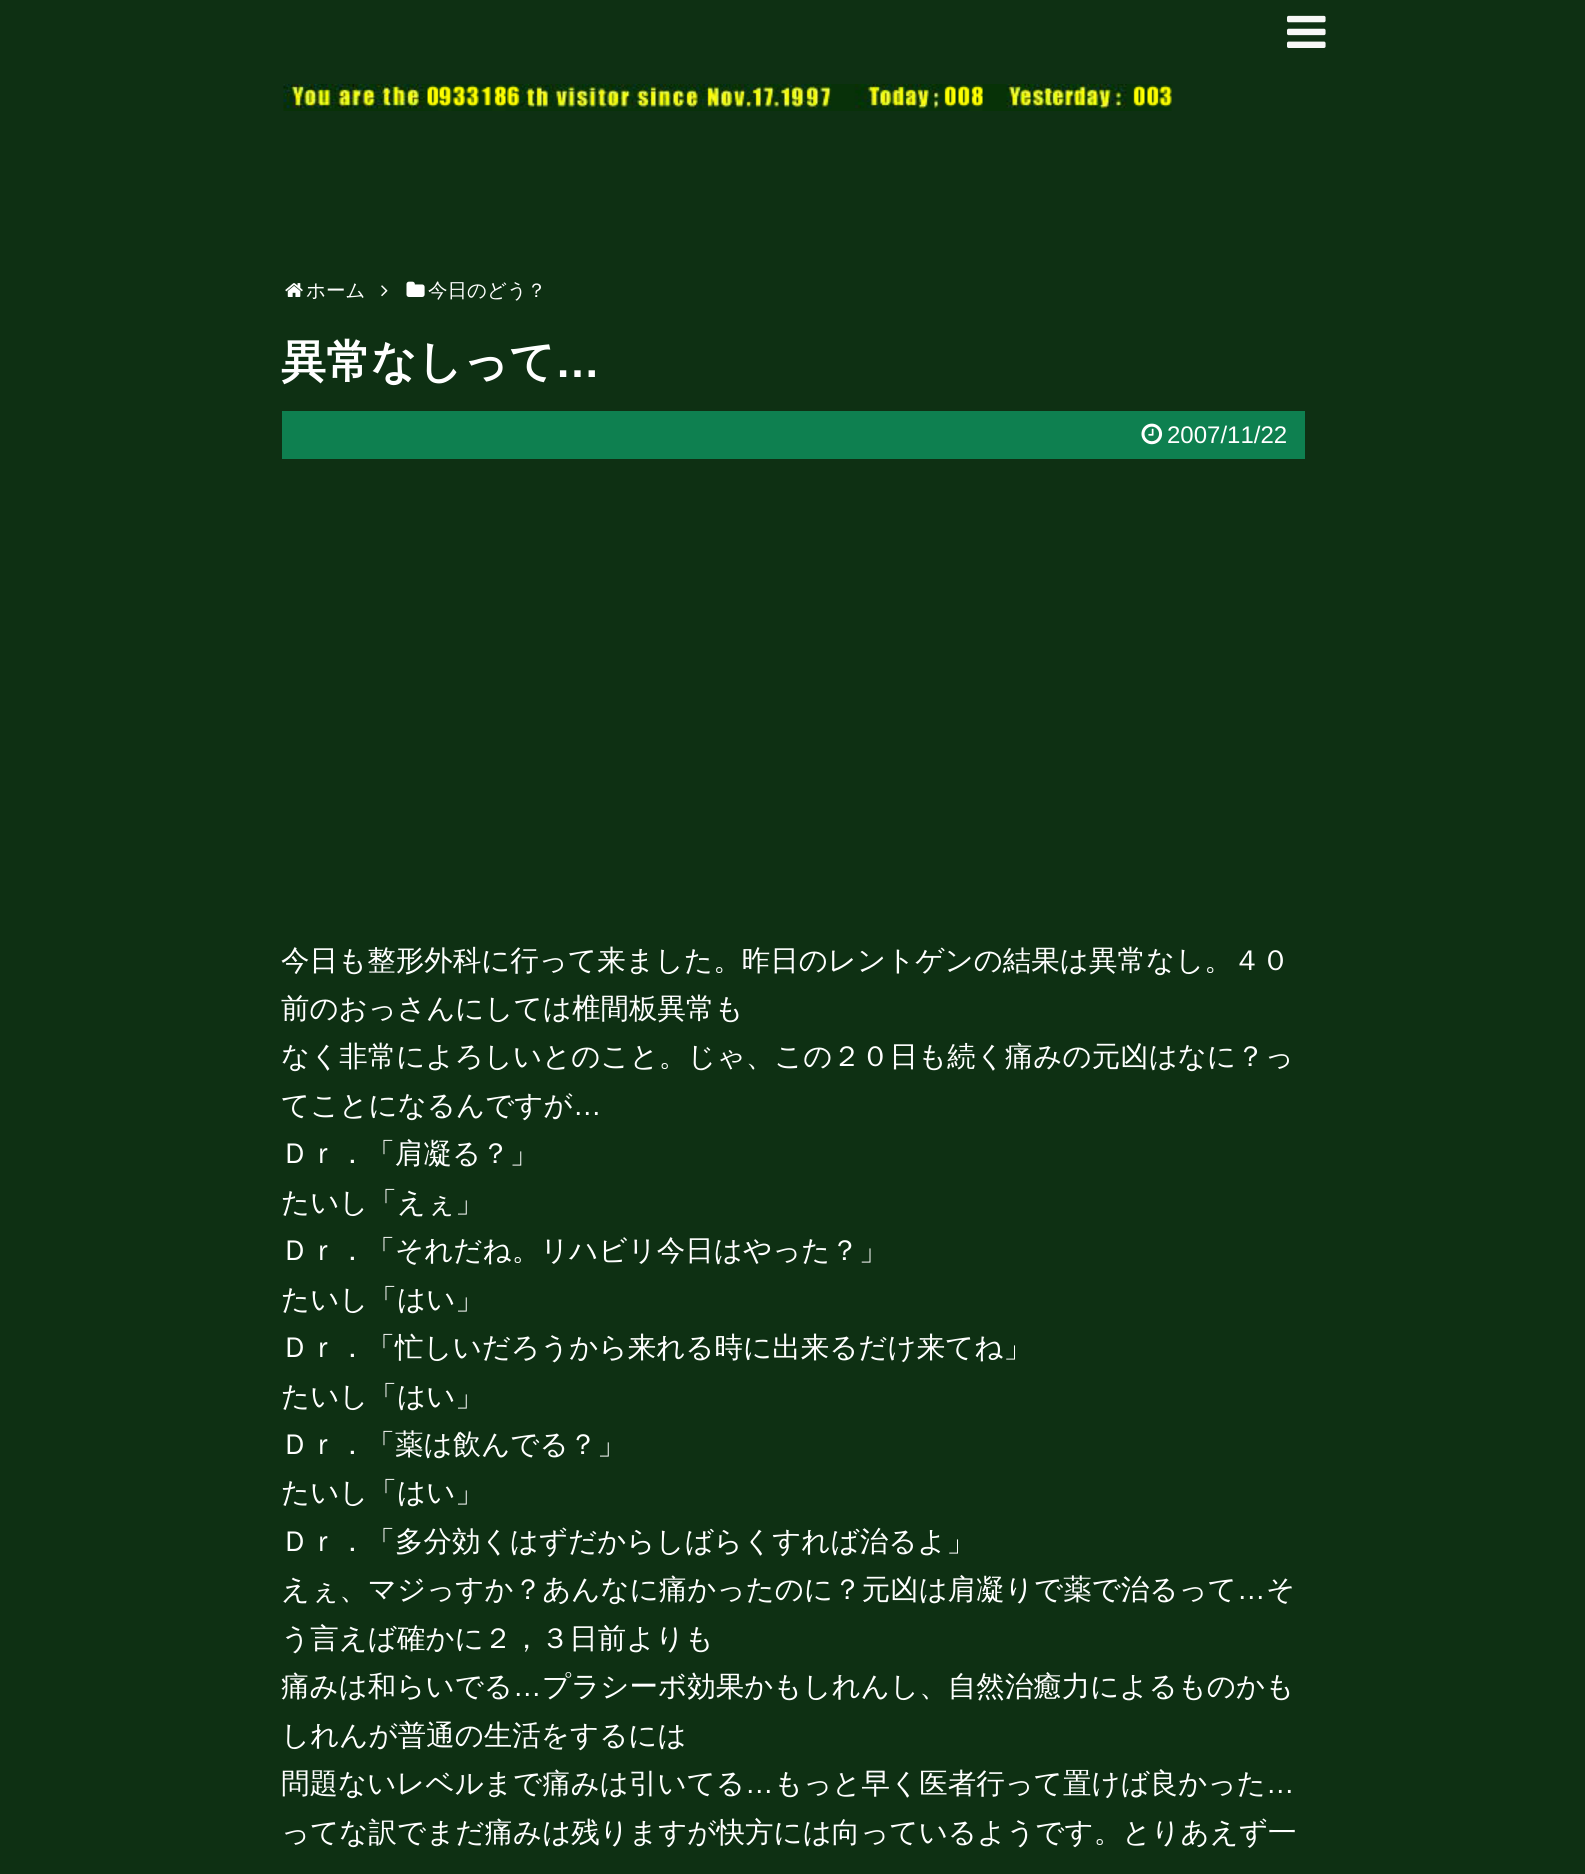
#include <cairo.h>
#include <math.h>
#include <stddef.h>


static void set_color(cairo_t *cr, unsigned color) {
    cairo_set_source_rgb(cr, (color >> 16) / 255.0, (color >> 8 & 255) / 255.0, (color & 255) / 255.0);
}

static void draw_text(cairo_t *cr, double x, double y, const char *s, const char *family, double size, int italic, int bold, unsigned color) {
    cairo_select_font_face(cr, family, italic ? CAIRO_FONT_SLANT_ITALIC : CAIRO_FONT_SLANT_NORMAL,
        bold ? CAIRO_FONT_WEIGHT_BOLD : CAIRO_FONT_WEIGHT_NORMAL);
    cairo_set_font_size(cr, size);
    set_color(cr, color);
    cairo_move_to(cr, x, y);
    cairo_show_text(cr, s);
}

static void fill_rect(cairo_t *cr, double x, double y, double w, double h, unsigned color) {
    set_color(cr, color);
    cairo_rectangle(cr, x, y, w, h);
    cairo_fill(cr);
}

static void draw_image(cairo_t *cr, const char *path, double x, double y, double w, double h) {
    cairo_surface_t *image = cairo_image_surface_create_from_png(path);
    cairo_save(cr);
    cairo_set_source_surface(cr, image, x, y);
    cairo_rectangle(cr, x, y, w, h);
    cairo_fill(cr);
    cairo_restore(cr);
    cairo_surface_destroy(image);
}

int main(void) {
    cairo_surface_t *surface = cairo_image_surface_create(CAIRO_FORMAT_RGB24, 1585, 1874);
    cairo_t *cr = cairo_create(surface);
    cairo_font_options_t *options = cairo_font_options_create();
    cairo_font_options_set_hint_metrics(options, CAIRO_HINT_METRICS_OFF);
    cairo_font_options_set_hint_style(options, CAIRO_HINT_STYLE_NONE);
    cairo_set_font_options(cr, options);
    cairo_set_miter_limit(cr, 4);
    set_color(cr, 0x0E3013);
    cairo_paint(cr);
    draw_image(cr, "assets/img1.png", 1287, 15, 39, 33);
    draw_image(cr, "assets/img2.png", 283, 84, 889, 27);
    draw_image(cr, "assets/img3.png", 285, 283, 18, 14);
    draw_text(cr, 306, 297, "ホーム", "WenQuanYi Zen Hei Medium", 19.5, 0, 0, 0xFFFFFF);
    draw_image(cr, "assets/img4.png", 381, 285, 7, 12);
    draw_image(cr, "assets/img5.png", 406, 281, 19, 16);
    draw_text(cr, 428, 297, "今日のどう？", "WenQuanYi Zen Hei Medium", 19.5, 0, 0, 0xFFFFFF);
    draw_text(cr, 281, 377, "異常なしって", "WenQuanYi Zen Hei", 45, 0, 1, 0xFFFFFF);
    draw_text(cr, 555, 377, "…", "Liberation Sans", 45, 0, 1, 0xFFFFFF);
    fill_rect(cr, 282, 411, 1023, 48, 0x0E8050);
    draw_image(cr, "assets/img6.png", 1141, 423, 22, 22);
    draw_text(cr, 1167, 443, "2007/11/22", "Liberation Sans", 24, 0, 0, 0xFFFFFF);
    draw_text(cr, 281, 970, "今日も整形外科に行って来ました。昨日のレントゲンの結果は異常なし。４０", "WenQuanYi Zen Hei Medium", 28.5, 0, 0, 0xFFFFFF);
    draw_text(cr, 281, 1018, "前のおっさんにしては椎間板異常も", "WenQuanYi Zen Hei Medium", 28.5, 0, 0, 0xFFFFFF);
    draw_text(cr, 281, 1066, "なく非常によろしいとのこと。じゃ、この２０日も続く痛みの元凶はなに？っ", "WenQuanYi Zen Hei Medium", 28.5, 0, 0, 0xFFFFFF);
    draw_text(cr, 281, 1115, "てことになるんですが", "WenQuanYi Zen Hei Medium", 28.5, 0, 0, 0xFFFFFF);
    draw_text(cr, 573, 1115, "…", "Liberation Sans", 28.5, 0, 0, 0xFFFFFF);
    draw_text(cr, 281, 1163, "Ｄｒ．「肩凝る？」", "WenQuanYi Zen Hei Medium", 28.5, 0, 0, 0xFFFFFF);
    draw_text(cr, 281, 1212, "たいし「えぇ」", "WenQuanYi Zen Hei Medium", 28.5, 0, 0, 0xFFFFFF);
    draw_text(cr, 281, 1260, "Ｄｒ．「それだね。リハビリ今日はやった？」", "WenQuanYi Zen Hei Medium", 28.5, 0, 0, 0xFFFFFF);
    draw_text(cr, 281, 1309, "たいし「はい」", "WenQuanYi Zen Hei Medium", 28.5, 0, 0, 0xFFFFFF);
    draw_text(cr, 281, 1357, "Ｄｒ．「忙しいだろうから来れる時に出来るだけ来てね」", "WenQuanYi Zen Hei Medium", 28.5, 0, 0, 0xFFFFFF);
    draw_text(cr, 281, 1406, "たいし「はい」", "WenQuanYi Zen Hei Medium", 28.5, 0, 0, 0xFFFFFF);
    draw_text(cr, 281, 1454, "Ｄｒ．「薬は飲んでる？」", "WenQuanYi Zen Hei Medium", 28.5, 0, 0, 0xFFFFFF);
    draw_text(cr, 281, 1502, "たいし「はい」", "WenQuanYi Zen Hei Medium", 28.5, 0, 0, 0xFFFFFF);
    draw_text(cr, 281, 1551, "Ｄｒ．「多分効くはずだからしばらくすれば治るよ」", "WenQuanYi Zen Hei Medium", 28.5, 0, 0, 0xFFFFFF);
    draw_text(cr, 281, 1599, "えぇ、マジっすか？あんなに痛かったのに？元凶は肩凝りで薬で治るって", "WenQuanYi Zen Hei Medium", 28.5, 0, 0, 0xFFFFFF);
    draw_text(cr, 1237, 1599, "…", "Liberation Sans", 28.5, 0, 0, 0xFFFFFF);
    draw_text(cr, 1266, 1599, "そ", "WenQuanYi Zen Hei Medium", 28.5, 0, 0, 0xFFFFFF);
    draw_text(cr, 281, 1648, "う言えば確かに２，３日前よりも", "WenQuanYi Zen Hei Medium", 28.5, 0, 0, 0xFFFFFF);
    draw_text(cr, 281, 1696, "痛みは和らいでる", "WenQuanYi Zen Hei Medium", 28.5, 0, 0, 0xFFFFFF);
    draw_text(cr, 513, 1696, "…", "Liberation Sans", 28.5, 0, 0, 0xFFFFFF);
    draw_text(cr, 542, 1696, "プラシーボ効果かもしれんし、自然治癒力によるものかも", "WenQuanYi Zen Hei Medium", 28.5, 0, 0, 0xFFFFFF);
    draw_text(cr, 281, 1745, "しれんが普通の生活をするには", "WenQuanYi Zen Hei Medium", 28.5, 0, 0, 0xFFFFFF);
    draw_text(cr, 281, 1793, "問題ないレベルまで痛みは引いてる", "WenQuanYi Zen Hei Medium", 28.5, 0, 0, 0xFFFFFF);
    draw_text(cr, 745, 1793, "…", "Liberation Sans", 28.5, 0, 0, 0xFFFFFF);
    draw_text(cr, 774, 1793, "もっと早く医者行って置けば良かった", "WenQuanYi Zen Hei Medium", 28.5, 0, 0, 0xFFFFFF);
    draw_text(cr, 1266, 1793, "…", "Liberation Sans", 28.5, 0, 0, 0xFFFFFF);
    draw_text(cr, 281, 1842, "ってな訳でまだ痛みは残りますが快方には向っているようです。とりあえず一", "WenQuanYi Zen Hei Medium", 28.5, 0, 0, 0xFFFFFF);
    cairo_surface_write_to_png(surface, "output.png");
    cairo_font_options_destroy(options);
    cairo_destroy(cr);
    cairo_surface_destroy(surface);
    return 0;
}
